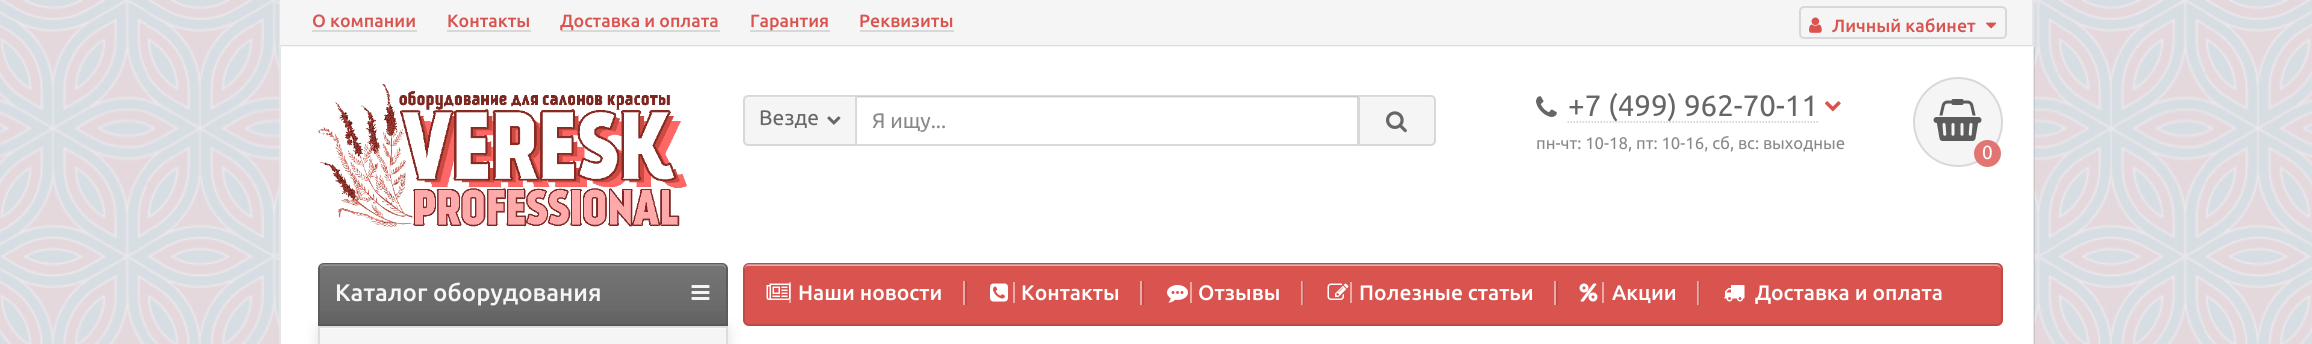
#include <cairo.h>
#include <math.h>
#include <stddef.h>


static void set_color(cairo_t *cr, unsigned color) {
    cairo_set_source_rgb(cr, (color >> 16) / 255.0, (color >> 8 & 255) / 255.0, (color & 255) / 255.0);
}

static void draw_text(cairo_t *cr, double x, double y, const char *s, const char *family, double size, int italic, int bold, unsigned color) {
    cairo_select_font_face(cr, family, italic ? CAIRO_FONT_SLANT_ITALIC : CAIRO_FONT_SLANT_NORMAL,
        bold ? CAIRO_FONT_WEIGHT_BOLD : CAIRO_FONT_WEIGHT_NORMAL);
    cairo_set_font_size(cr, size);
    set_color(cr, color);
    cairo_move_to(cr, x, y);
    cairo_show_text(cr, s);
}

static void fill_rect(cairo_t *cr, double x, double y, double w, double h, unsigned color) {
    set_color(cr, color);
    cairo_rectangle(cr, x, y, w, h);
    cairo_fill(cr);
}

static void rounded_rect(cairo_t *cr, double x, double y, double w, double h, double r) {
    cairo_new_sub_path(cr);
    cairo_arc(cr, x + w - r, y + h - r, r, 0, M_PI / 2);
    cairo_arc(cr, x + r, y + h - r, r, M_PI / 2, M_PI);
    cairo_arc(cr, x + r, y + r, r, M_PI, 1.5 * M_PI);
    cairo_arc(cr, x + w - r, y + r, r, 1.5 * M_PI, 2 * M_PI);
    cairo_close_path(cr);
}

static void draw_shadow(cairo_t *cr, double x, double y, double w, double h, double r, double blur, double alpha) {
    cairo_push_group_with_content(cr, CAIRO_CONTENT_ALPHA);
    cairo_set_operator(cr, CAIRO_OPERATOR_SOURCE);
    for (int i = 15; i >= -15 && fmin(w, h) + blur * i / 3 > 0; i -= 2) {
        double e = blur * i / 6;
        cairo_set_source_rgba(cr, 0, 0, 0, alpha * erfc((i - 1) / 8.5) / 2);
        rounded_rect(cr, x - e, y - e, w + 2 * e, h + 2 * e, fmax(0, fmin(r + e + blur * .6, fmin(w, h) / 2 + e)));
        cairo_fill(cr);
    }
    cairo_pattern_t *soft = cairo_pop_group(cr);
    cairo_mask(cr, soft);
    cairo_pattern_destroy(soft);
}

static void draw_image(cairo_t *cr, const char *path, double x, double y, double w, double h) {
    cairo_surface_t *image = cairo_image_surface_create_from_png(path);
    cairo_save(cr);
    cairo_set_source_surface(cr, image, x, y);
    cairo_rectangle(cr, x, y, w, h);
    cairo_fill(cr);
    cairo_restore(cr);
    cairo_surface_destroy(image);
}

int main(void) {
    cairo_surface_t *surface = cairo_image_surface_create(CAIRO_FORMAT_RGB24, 2312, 344);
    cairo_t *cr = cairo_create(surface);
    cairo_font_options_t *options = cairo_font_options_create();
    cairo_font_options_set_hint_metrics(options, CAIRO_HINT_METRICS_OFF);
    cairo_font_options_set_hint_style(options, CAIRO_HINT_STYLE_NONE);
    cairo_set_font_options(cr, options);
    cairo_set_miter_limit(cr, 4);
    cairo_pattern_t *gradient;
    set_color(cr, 0xFFFFFF);
    cairo_paint(cr);
    draw_image(cr, "assets/img1.png", 0, 0, 2312, 344);
    fill_rect(cr, 279, 0, 1755, 47, 0xF5F5F5);
    set_color(cr, 0xE6E6E6);
    cairo_new_path(cr);
    cairo_move_to(cr, 2034, -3);
    cairo_line_to(cr, 2034, 46);
    cairo_line_to(cr, 2032, 45);
    cairo_line_to(cr, 2032, -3);
    cairo_close_path(cr);
    cairo_fill(cr);
    cairo_set_source_rgba(cr, 0, 0, 0, 0.1);
    cairo_new_path(cr);
    cairo_move_to(cr, 2034, 46);
    cairo_line_to(cr, 279, 46);
    cairo_line_to(cr, 280, 45);
    cairo_line_to(cr, 2032, 45);
    cairo_close_path(cr);
    cairo_fill(cr);
    cairo_set_source_rgba(cr, 0, 0, 0, 0.06);
    cairo_new_path(cr);
    cairo_move_to(cr, 279, 46);
    cairo_line_to(cr, 279, -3);
    cairo_line_to(cr, 280, -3);
    cairo_line_to(cr, 280, 45);
    cairo_close_path(cr);
    cairo_fill(cr);
    draw_text(cr, 312, 27, "О компании", "Ubuntu Medium", 17.75, 0, 0, 0xD9534F);
    fill_rect(cr, 312, 30, 105, 2, 0xD8D8D8);
    draw_text(cr, 447, 27, "Контакты", "Ubuntu Medium", 17.75, 0, 0, 0xD9534F);
    fill_rect(cr, 447, 30, 84, 2, 0xD8D8D8);
    fill_rect(cr, 561, 30, 159, 2, 0xD8D8D8);
    draw_text(cr, 560, 27, "Доставка и оплата", "Ubuntu Medium", 17.75, 0, 0, 0xD9534F);
    fill_rect(cr, 750, 30, 80, 2, 0xD8D8D8);
    draw_text(cr, 750, 27, "Гарантия", "Ubuntu Medium", 17.75, 0, 0, 0xD9534F);
    draw_text(cr, 859, 27, "Реквизиты", "Ubuntu Medium", 17.75, 0, 0, 0xD9534F);
    fill_rect(cr, 860, 30, 94, 2, 0xD8D8D8);
    rounded_rect(cr, 1800, 7, 206, 31, 4);
    cairo_stroke(cr);
    draw_image(cr, "assets/img2.png", 1809, 17, 13, 16);
    draw_text(cr, 1832, 32, "Личный кабинет", "Ubuntu Medium", 17.75, 0, 0, 0xD9534F);
    draw_image(cr, "assets/img3.png", 1986, 22, 11, 7);
    fill_rect(cr, 281, 47, 1753, 297, 0xFFFFFF);
    cairo_set_source_rgba(cr, 0, 0, 0, 0.1);
    cairo_rectangle(cr, 2033, 47, 2, 216);
    cairo_fill(cr);
    fill_rect(cr, 279, 47, 2, 297, 0xE6E6E6);
    draw_image(cr, "assets/img4.png", 318, 84, 369, 143);
    set_color(cr, 0xF5F5F5);
    cairo_new_path(cr);
    cairo_move_to(cr, 748, 95);
    cairo_line_to(cr, 858, 95);
    cairo_line_to(cr, 858, 146);
    cairo_line_to(cr, 748, 146);
    cairo_curve_to(cr, 745, 146, 743, 144, 743, 141);
    cairo_line_to(cr, 743, 100);
    cairo_curve_to(cr, 743, 97, 745, 95, 748, 95);
    cairo_close_path(cr);
    cairo_fill(cr);
    set_color(cr, 0xF8F8F8);
    cairo_new_path(cr);
    cairo_move_to(cr, 747, 98);
    cairo_line_to(cr, 856, 98);
    cairo_line_to(cr, 856, 144);
    cairo_line_to(cr, 857, 144);
    cairo_line_to(cr, 857, 96);
    cairo_line_to(cr, 747, 96);
    cairo_curve_to(cr, 745, 96, 744, 97, 744, 99);
    cairo_line_to(cr, 744, 100);
    cairo_curve_to(cr, 744, 99, 745, 98, 747, 98);
    cairo_close_path(cr);
    cairo_fill(cr);
    cairo_new_path(cr);
    cairo_move_to(cr, 748, 96);
    cairo_line_to(cr, 857, 96);
    cairo_line_to(cr, 857, 145);
    cairo_line_to(cr, 748, 145);
    cairo_curve_to(cr, 746, 145, 744, 143, 744, 141);
    cairo_line_to(cr, 744, 100);
    cairo_curve_to(cr, 744, 98, 746, 96, 748, 96);
    cairo_close_path(cr);
    cairo_set_source_rgba(cr, 0, 0, 0, 0.12);
    cairo_stroke(cr);
    draw_text(cr, 759, 125, "Везде", "Ubuntu", 21, 0, 0, 0x666666);
    draw_image(cr, "assets/img5.png", 827, 116, 14, 9);
    fill_rect(cr, 855, 95, 3, 51, 0xFFFFFF);
    fill_rect(cr, 857, 96, 501, 2, 0xECECEC);
    cairo_rectangle(cr, 856, 96, 502, 49);
    cairo_set_source_rgba(cr, 0, 0, 0, 0.15);
    cairo_stroke(cr);
    draw_text(cr, 872, 128, "Я ищу...", "Ubuntu", 21, 0, 0, 0x888888);
    set_color(cr, 0xF5F5F5);
    cairo_new_path(cr);
    cairo_move_to(cr, 1358, 95);
    cairo_line_to(cr, 1431, 95);
    cairo_curve_to(cr, 1434, 95, 1436, 97, 1436, 100);
    cairo_line_to(cr, 1436, 141);
    cairo_curve_to(cr, 1436, 144, 1434, 146, 1431, 146);
    cairo_line_to(cr, 1358, 146);
    cairo_close_path(cr);
    cairo_fill(cr);
    set_color(cr, 0xF8F8F8);
    cairo_new_path(cr);
    cairo_move_to(cr, 1359, 98);
    cairo_line_to(cr, 1431, 98);
    cairo_curve_to(cr, 1433, 98, 1434, 99, 1434, 100);
    cairo_line_to(cr, 1434, 99);
    cairo_curve_to(cr, 1434, 97, 1433, 96, 1431, 96);
    cairo_line_to(cr, 1359, 96);
    cairo_close_path(cr);
    cairo_fill(cr);
    cairo_new_path(cr);
    cairo_move_to(cr, 1359, 96);
    cairo_line_to(cr, 1431, 96);
    cairo_curve_to(cr, 1433, 96, 1435, 98, 1435, 100);
    cairo_line_to(cr, 1435, 141);
    cairo_curve_to(cr, 1435, 143, 1433, 145, 1431, 145);
    cairo_line_to(cr, 1359, 145);
    cairo_close_path(cr);
    cairo_set_source_rgba(cr, 0, 0, 0, 0.12);
    cairo_stroke(cr);
    draw_image(cr, "assets/img6.png", 1386, 111, 21, 22);
    draw_image(cr, "assets/img7.png", 1536, 96, 21, 21);
    cairo_new_path(cr);
    cairo_move_to(cr, 1567.5, 122);
    cairo_line_to(cr, 1818, 122);
    set_color(cr, 0xCCCCCC);
    cairo_set_line_width(cr, 1.5);
    cairo_set_dash(cr, (double[]){1.5, 1.5}, 2, 0);
    cairo_stroke(cr);
    draw_text(cr, 1568, 116, "+7 (499) 962-70-11", "Ubuntu", 29.5, 0, 0, 0x666666);
    draw_image(cr, "assets/img8.png", 1824, 101, 17, 11);
    draw_text(cr, 1536, 149, "пн-чт: 10-18, пт: 10-16, сб, вс: выходные", "Ubuntu", 16.75, 0, 0, 0x888888);
    set_color(cr, 0xF5F5F5);
    cairo_new_path(cr);
    cairo_arc(cr, 1958, 122, 45, 0, 2 * M_PI);
    cairo_fill(cr);
    cairo_arc(cr, 1958, 122, 44, 0, 2 * M_PI);
    cairo_set_source_rgba(cr, 0, 0, 0, 0.12);
    cairo_set_line_width(cr, 2);
    cairo_set_dash(cr, NULL, 0, 0);
    cairo_stroke(cr);
    draw_image(cr, "assets/img9.png", 1933, 99, 49, 42);
    set_color(cr, 0xE07572);
    cairo_arc(cr, 1987.5, 153.5, 13.5, 0, 2 * M_PI);
    cairo_fill(cr);
    draw_text(cr, 1982, 159, "0", "Ubuntu", 19, 0, 0, 0xFFFFFF);
    cairo_set_source_rgba(cr, 0, 0, 0, 0.1);
    cairo_rectangle(cr, 2033, 263, 2, 81);
    cairo_fill(cr);
    set_color(cr, 0x666666);
    cairo_new_path(cr);
    cairo_move_to(cr, 324, 263);
    cairo_line_to(cr, 722, 263);
    cairo_curve_to(cr, 725.5, 263, 728, 265.5, 728, 269);
    cairo_line_to(cr, 728, 326);
    cairo_line_to(cr, 318, 326);
    cairo_line_to(cr, 318, 269);
    cairo_curve_to(cr, 318, 265.5, 320.5, 263, 324, 263);
    cairo_close_path(cr);
    cairo_fill(cr);
    set_color(cr, 0x858585);
    cairo_new_path(cr);
    cairo_move_to(cr, 324, 266);
    cairo_line_to(cr, 722, 266);
    cairo_curve_to(cr, 724, 266, 726, 268, 726, 270);
    cairo_line_to(cr, 726, 269);
    cairo_curve_to(cr, 726, 266, 724, 264, 721, 264);
    cairo_line_to(cr, 325, 264);
    cairo_curve_to(cr, 322, 264, 320, 266, 320, 269);
    cairo_line_to(cr, 320, 270);
    cairo_curve_to(cr, 320, 268, 322, 266, 324, 266);
    cairo_close_path(cr);
    cairo_fill(cr);
    cairo_new_path(cr);
    cairo_move_to(cr, 324, 264);
    cairo_line_to(cr, 722, 264);
    cairo_curve_to(cr, 725, 264, 727, 266, 727, 269);
    cairo_line_to(cr, 727, 325);
    cairo_line_to(cr, 319, 325);
    cairo_line_to(cr, 319, 269);
    cairo_curve_to(cr, 319, 266, 321, 264, 324, 264);
    cairo_close_path(cr);
    cairo_set_source_rgba(cr, 0, 0, 0, 0.1);
    cairo_stroke(cr);
    gradient = cairo_pattern_create_linear(523, 264, 523, 324);
    cairo_pattern_add_color_stop_rgba(gradient, 0, 1, 1, 1, 0.1);
    cairo_pattern_add_color_stop_rgba(gradient, 1, 1, 1, 1, 0);
    cairo_set_source(cr, gradient);
    cairo_pattern_destroy(gradient);
    cairo_rectangle(cr, 320, 264, 406, 47);
    cairo_fill(cr);
    draw_text(cr, 335, 301, "Каталог оборудования", "Ubuntu Medium", 24, 0, 0, 0xF5F5F5);
    draw_image(cr, "assets/img10.png", 691, 285, 19, 15);
    set_color(cr, 0xD9534F);
    rounded_rect(cr, 743, 263, 1260, 63, 6);
    cairo_fill(cr);
    set_color(cr, 0xECA9A7);
    cairo_new_path(cr);
    cairo_move_to(cr, 748, 266);
    cairo_line_to(cr, 1996, 266);
    cairo_curve_to(cr, 1999, 266, 2001, 268, 2001, 270);
    cairo_curve_to(cr, 2001, 267, 1999, 264, 1996, 264);
    cairo_line_to(cr, 749, 264);
    cairo_curve_to(cr, 746, 264, 744, 267, 744, 270);
    cairo_curve_to(cr, 744, 268, 746, 266, 748, 266);
    cairo_close_path(cr);
    cairo_fill(cr);
    rounded_rect(cr, 744, 264, 1258, 61, 5);
    cairo_set_source_rgba(cr, 0, 0, 0, 0.12);
    cairo_stroke(cr);
    set_color(cr, 0x000000);
    draw_shadow(cr, 318, 326, 410, 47, 6, 7.5, 0.12);
    fill_rect(cr, 320, 326, 406, 18, 0xF5F5F5);
    set_color(cr, 0xDDDDDD);
    cairo_set_fill_rule(cr, CAIRO_FILL_RULE_EVEN_ODD);
    cairo_new_path(cr);
    cairo_move_to(cr, 318, 326);
    cairo_line_to(cr, 728, 326);
    cairo_line_to(cr, 728, 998);
    cairo_curve_to(cr, 728, 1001, 725, 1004, 722, 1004);
    cairo_line_to(cr, 324, 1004);
    cairo_curve_to(cr, 321, 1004, 318, 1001, 318, 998);
    cairo_close_path(cr);
    cairo_move_to(cr, 320, 326);
    cairo_line_to(cr, 726, 326);
    cairo_line_to(cr, 726, 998);
    cairo_curve_to(cr, 726, 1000, 724, 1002, 722, 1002);
    cairo_line_to(cr, 324, 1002);
    cairo_curve_to(cr, 322, 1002, 320, 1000, 320, 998);
    cairo_close_path(cr);
    cairo_fill(cr);
    fill_rect(cr, 320, 327, 406, 2, 0xFAFAFA);
    cairo_set_source_rgba(cr, 0, 0, 0, 0.1);
    cairo_rectangle(cr, 320, 326, 406, 2);
    cairo_fill(cr);
    fill_rect(cr, 789, 282, 2, 21, 0xECA9A7);
    fill_rect(cr, 963, 281, 2, 24, 0xECA9A7);
    fill_rect(cr, 965, 281, 2, 24, 0xC34B47);
    draw_image(cr, "assets/img11.png", 766, 283, 25, 17);
    draw_text(cr, 798, 300, "Наши новости", "Ubuntu Medium", 21, 0, 0, 0xFFFFFF);
    fill_rect(cr, 1013, 282, 2, 21, 0xECA9A7);
    fill_rect(cr, 1140, 281, 2, 24, 0xECA9A7);
    fill_rect(cr, 1142, 281, 2, 24, 0xC34B47);
    draw_image(cr, "assets/img12.png", 990, 283, 18, 19);
    draw_text(cr, 1021, 300, "Контакты", "Ubuntu Medium", 21, 0, 0, 0xFFFFFF);
    fill_rect(cr, 1190, 282, 2, 21, 0xECA9A7);
    fill_rect(cr, 1301, 281, 2, 24, 0xECA9A7);
    cairo_set_source_rgba(cr, 0, 0, 0, 0.1);
    cairo_rectangle(cr, 1302, 281, 2, 24);
    cairo_fill(cr);
    draw_image(cr, "assets/img13.png", 1167, 285, 21, 18);
    draw_text(cr, 1198, 300, "Отзывы", "Ubuntu Medium", 21, 0, 0, 0xFFFFFF);
    fill_rect(cr, 1350, 282, 2, 21, 0xECA9A7);
    fill_rect(cr, 1554, 281, 2, 24, 0xECA9A7);
    fill_rect(cr, 1556, 281, 2, 24, 0xC34B47);
    draw_image(cr, "assets/img14.png", 1327, 283, 22, 17);
    draw_text(cr, 1359, 300, "Полезные статьи", "Ubuntu Medium", 21, 0, 0, 0xFFFFFF);
    fill_rect(cr, 1602, 282, 2, 21, 0xECA9A7);
    fill_rect(cr, 1697, 281, 2, 24, 0xECA9A7);
    cairo_set_source_rgba(cr, 0, 0, 0, 0.1);
    cairo_rectangle(cr, 1698, 281, 2, 24);
    cairo_fill(cr);
    draw_image(cr, "assets/img15.png", 1579, 283, 19, 19);
    draw_text(cr, 1612, 300, "Акции", "Ubuntu Medium", 21, 0, 0, 0xFFFFFF);
    draw_image(cr, "assets/img16.png", 1724, 285, 21, 17);
    draw_text(cr, 1755, 300, "Доставка и оплата", "Ubuntu Medium", 21, 0, 0, 0xFFFFFF);
    cairo_surface_write_to_png(surface, "output.png");
    cairo_font_options_destroy(options);
    cairo_destroy(cr);
    cairo_surface_destroy(surface);
    return 0;
}
